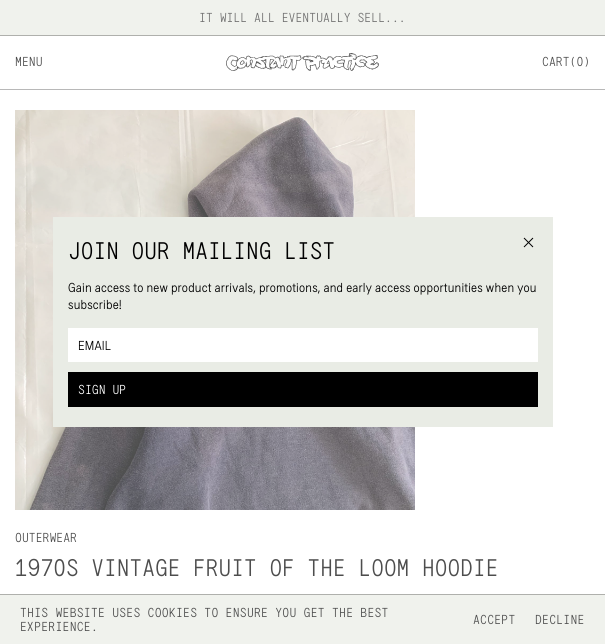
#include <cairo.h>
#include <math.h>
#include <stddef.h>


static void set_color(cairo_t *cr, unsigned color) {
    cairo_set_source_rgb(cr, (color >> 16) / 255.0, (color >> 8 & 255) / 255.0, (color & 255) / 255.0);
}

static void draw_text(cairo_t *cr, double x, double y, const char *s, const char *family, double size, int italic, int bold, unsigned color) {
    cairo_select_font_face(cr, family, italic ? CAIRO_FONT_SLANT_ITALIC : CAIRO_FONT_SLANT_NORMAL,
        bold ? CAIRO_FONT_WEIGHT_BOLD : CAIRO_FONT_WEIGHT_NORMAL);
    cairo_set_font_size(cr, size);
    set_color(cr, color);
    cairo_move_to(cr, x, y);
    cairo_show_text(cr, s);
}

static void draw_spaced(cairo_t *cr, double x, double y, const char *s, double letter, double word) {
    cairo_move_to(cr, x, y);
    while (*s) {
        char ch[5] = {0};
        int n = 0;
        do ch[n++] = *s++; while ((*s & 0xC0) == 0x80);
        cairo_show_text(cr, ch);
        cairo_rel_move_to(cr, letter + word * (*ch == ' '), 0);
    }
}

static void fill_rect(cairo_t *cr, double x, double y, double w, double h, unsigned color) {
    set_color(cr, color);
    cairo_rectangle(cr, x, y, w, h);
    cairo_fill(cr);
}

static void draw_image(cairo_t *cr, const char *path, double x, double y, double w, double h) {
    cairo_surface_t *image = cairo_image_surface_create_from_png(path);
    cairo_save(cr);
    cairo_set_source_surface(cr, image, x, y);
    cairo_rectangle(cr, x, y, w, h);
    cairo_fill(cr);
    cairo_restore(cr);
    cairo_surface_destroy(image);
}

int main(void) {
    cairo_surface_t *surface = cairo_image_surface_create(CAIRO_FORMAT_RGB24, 605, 644);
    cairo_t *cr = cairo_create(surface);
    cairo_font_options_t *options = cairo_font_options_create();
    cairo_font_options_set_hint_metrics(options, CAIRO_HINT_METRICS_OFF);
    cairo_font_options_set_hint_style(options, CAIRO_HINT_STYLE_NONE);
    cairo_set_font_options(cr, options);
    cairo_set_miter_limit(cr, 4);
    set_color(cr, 0xFFFFFF);
    cairo_paint(cr);
    fill_rect(cr, 0, 0, 605, 35, 0xF0F2ED);
    fill_rect(cr, 0, 35, 605, 1, 0xAFB0AC);
    draw_text(cr, 199, 22, "IT WILL ALL EVENTUALLY SELL...", "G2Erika", 13, 0, 0, 0x707070);
    fill_rect(cr, 0, 89, 605, 1, 0xB8B8B8);
    draw_text(cr, 15, 66, "MENU", "G2Erika", 13, 0, 0, 0x4D4D4D);
    draw_image(cr, "assets/img1.png", 226, 53, 153, 18);
    draw_text(cr, 542, 66, "CART(0)", "G2Erika", 13, 0, 0, 0x4D4D4D);
    draw_image(cr, "assets/img3.png", 15, 110, 400, 400);
    fill_rect(cr, 53, 217, 500, 210, 0xE9ECE5);
    draw_text(cr, 68, 259, "JOIN OUR MAILING LIST", "G2Erika", 24, 0, 0, 0x000000);
    draw_image(cr, "assets/img2.png", 523, 237, 11, 11);
    cairo_select_font_face(cr, "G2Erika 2", CAIRO_FONT_SLANT_NORMAL, CAIRO_FONT_WEIGHT_NORMAL);
    cairo_set_font_size(cr, 13);
    draw_spaced(cr, 68, 292, "Gain access to new product arrivals, promotions, and early access opportunities when you", 0.2, 0);
    draw_spaced(cr, 68, 309, "subscribe!", 0.2, 0);
    fill_rect(cr, 68, 328, 470, 34, 0xFFFFFF);
    set_color(cr, 0x000000);
    draw_spaced(cr, 78, 350, "EMAIL", 0.2, 0);
    fill_rect(cr, 68, 372, 470, 35, 0x000000);
    draw_text(cr, 78, 394, "SIGN UP", "G2Erika", 13, 0, 0, 0xFFFFFF);
    draw_text(cr, 15, 542, "OUTERWEAR", "G2Erika", 13, 0, 0, 0x4D4D4D);
    draw_text(cr, 15, 576, "1970S VINTAGE FRUIT OF THE LOOM HOODIE", "G2Erika", 24, 0, 0, 0x4D4D4D);
    fill_rect(cr, 0, 595, 605, 49, 0xF0F2ED);
    fill_rect(cr, 0, 594, 605, 1, 0xAFB0AC);
    cairo_set_font_size(cr, 13);
    set_color(cr, 0x4D4D4D);
    draw_spaced(cr, 20, 617, "THIS WEBSITE USES COOKIES TO ENSURE YOU GET THE BEST", 0.2, 0);
    draw_spaced(cr, 20, 631, "EXPERIENCE.", 0.2, 0);
    draw_spaced(cr, 473, 624, "ACCEPT", 0.2, 0);
    draw_spaced(cr, 535, 624, "DECLINE", 0.2, 0);
    cairo_surface_write_to_png(surface, "output.png");
    cairo_font_options_destroy(options);
    cairo_destroy(cr);
    cairo_surface_destroy(surface);
    return 0;
}
